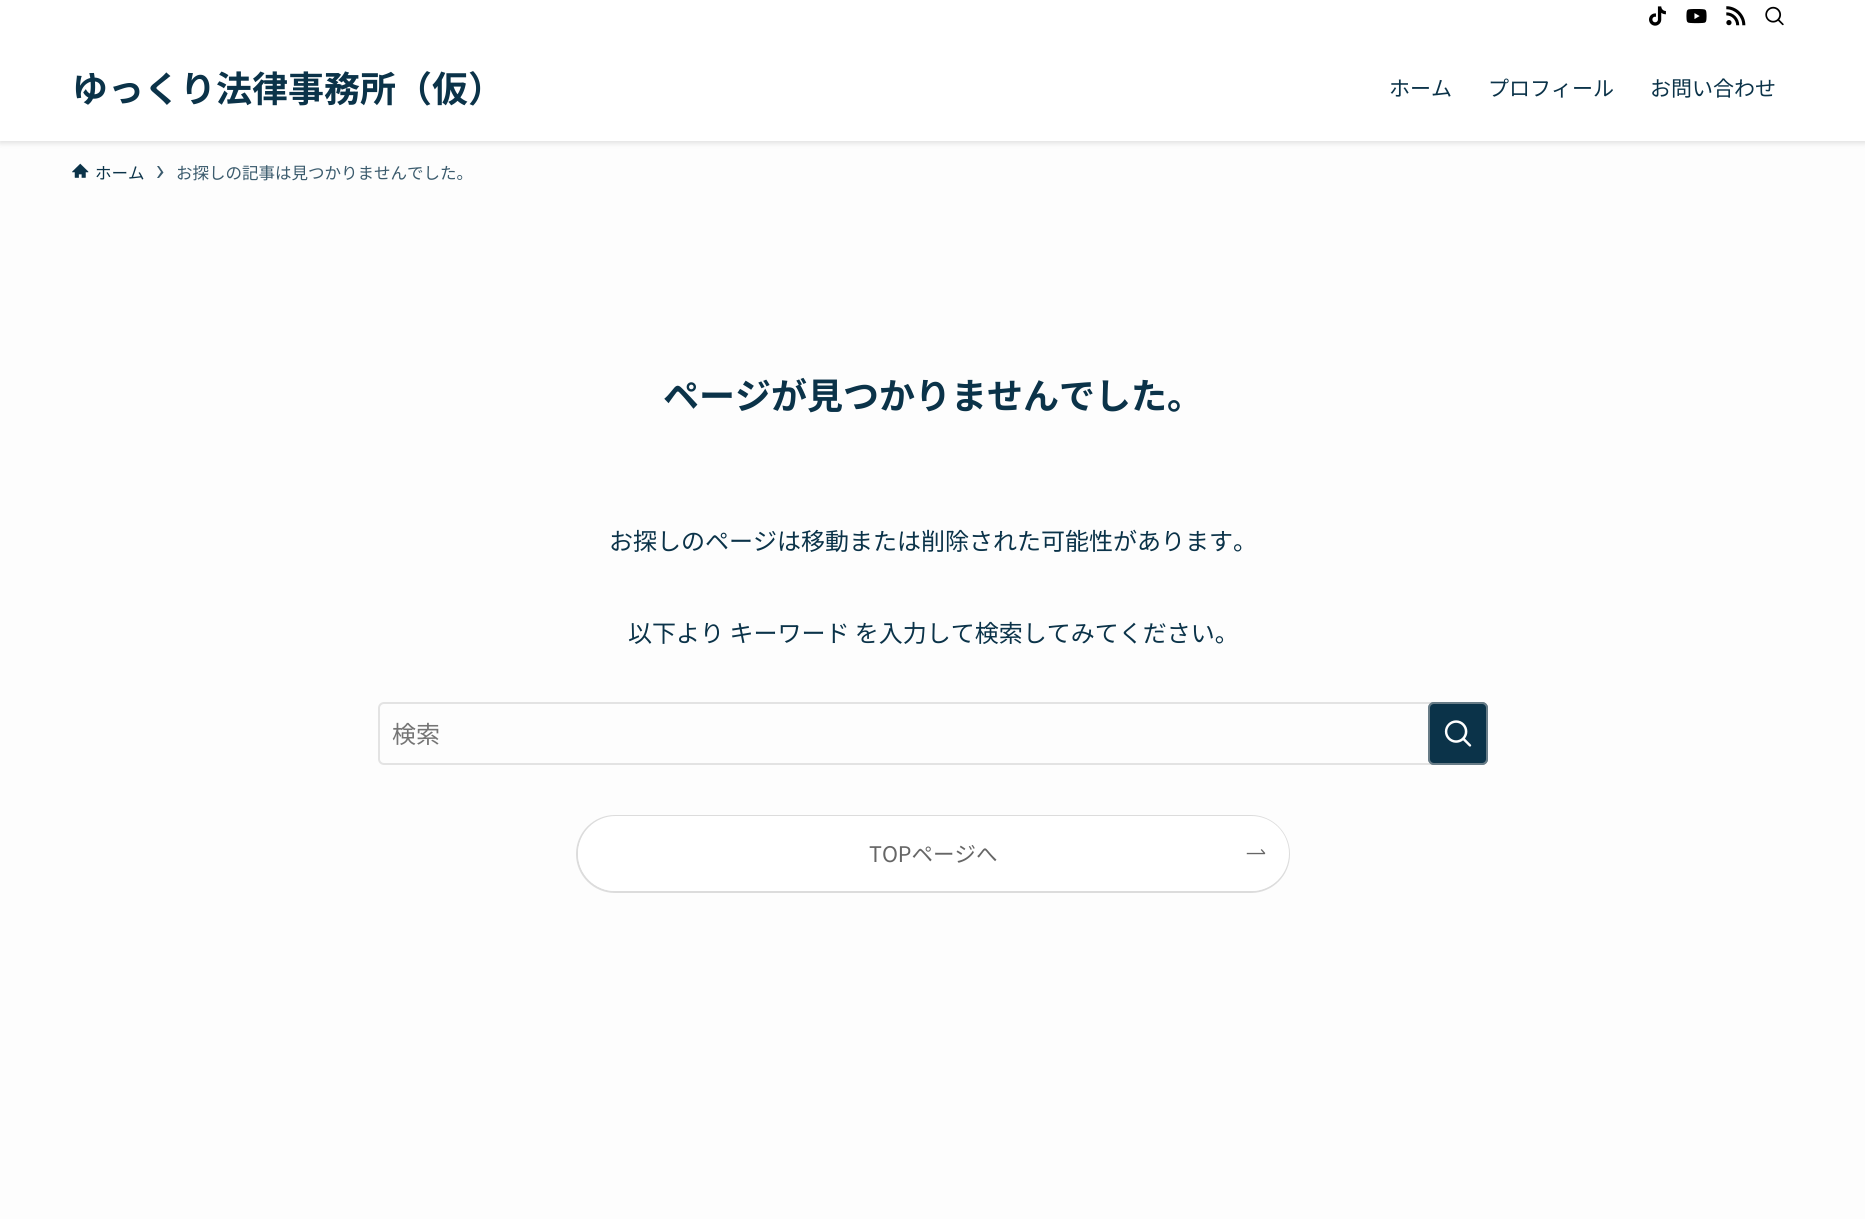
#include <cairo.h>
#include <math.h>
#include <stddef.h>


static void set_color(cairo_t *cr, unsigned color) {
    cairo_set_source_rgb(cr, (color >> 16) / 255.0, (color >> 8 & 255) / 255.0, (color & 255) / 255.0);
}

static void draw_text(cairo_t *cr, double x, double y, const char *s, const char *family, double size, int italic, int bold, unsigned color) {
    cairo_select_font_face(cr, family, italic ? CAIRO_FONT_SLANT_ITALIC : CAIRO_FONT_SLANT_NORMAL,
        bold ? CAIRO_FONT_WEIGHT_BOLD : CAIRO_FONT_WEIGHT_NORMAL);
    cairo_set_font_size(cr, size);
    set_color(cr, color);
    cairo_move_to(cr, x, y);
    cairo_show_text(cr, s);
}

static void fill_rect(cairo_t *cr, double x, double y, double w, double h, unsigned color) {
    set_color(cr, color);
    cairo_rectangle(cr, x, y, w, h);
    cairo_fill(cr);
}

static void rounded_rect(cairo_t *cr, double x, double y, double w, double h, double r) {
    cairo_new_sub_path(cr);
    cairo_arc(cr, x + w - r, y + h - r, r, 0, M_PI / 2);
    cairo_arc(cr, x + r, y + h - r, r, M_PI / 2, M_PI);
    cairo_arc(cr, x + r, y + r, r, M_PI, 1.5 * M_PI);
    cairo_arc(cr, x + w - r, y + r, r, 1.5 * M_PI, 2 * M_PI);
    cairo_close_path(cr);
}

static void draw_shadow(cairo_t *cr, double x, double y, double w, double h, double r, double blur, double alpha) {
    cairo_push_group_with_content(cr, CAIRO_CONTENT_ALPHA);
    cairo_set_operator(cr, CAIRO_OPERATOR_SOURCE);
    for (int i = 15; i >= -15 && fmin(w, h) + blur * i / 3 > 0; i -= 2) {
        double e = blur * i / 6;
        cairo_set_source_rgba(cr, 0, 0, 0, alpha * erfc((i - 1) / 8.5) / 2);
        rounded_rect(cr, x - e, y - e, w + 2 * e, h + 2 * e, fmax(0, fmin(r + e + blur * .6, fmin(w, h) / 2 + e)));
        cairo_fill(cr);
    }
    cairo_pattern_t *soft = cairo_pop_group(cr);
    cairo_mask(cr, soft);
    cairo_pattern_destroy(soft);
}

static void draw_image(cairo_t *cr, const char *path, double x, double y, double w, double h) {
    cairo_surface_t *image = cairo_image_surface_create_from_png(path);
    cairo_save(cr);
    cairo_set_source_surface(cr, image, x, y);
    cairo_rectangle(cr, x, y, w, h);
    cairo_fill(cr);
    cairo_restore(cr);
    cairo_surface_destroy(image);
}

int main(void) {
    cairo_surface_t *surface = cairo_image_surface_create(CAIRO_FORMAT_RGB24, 1865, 1219);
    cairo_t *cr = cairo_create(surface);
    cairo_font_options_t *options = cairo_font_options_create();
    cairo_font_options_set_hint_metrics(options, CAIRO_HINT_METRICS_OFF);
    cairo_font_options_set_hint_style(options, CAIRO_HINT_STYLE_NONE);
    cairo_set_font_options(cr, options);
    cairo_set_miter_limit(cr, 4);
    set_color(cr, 0xFDFDFD);
    cairo_paint(cr);
    set_color(cr, 0x000000);
    draw_shadow(cr, 0, 2, 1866, 141, 0, 3, 0.12);
    fill_rect(cr, 0, 0, 1865, 141, 0xFFFFFF);
    draw_image(cr, "assets/img1.png", 1649, 6, 17, 20);
    draw_image(cr, "assets/img2.png", 1686, 9, 21, 15);
    draw_image(cr, "assets/img3.png", 1726, 6, 20, 20);
    draw_image(cr, "assets/img4.png", 1765, 6, 19, 20);
    draw_text(cr, 72, 102, "ゆっくり法律事務所（仮）", "Noto Sans JP", 36, 0, 1, 0x0B3349);
    draw_text(cr, 1389, 96, "ホーム", "Noto Sans JP", 21, 0, 0, 0x0B3349);
    draw_text(cr, 1488, 96, "プロフィール", "Noto Sans JP", 21, 0, 0, 0x0B3349);
    draw_text(cr, 1650, 96, "お問い合わせ", "Noto Sans JP", 21, 0, 0, 0x0B3349);
    draw_image(cr, "assets/img5.png", 72, 163, 17, 15);
    draw_text(cr, 95, 179, "ホーム", "Noto Sans JP", 16.5, 0, 0, 0x0B3349);
    set_color(cr, 0x3B5B6D);
    cairo_new_path(cr);
    cairo_move_to(cr, 159, 166);
    cairo_line_to(cr, 157, 166);
    cairo_line_to(cr, 161, 172);
    cairo_line_to(cr, 157, 178);
    cairo_line_to(cr, 159, 178);
    cairo_line_to(cr, 163.5, 172.5);
    cairo_close_path(cr);
    cairo_fill(cr);
    draw_text(cr, 176, 179, "お探しの記事は見つかりませんでした。", "Noto Sans JP", 16.5, 0, 0, 0x3B5B6D);
    draw_text(cr, 663, 409, "ページが見つかりませんでした。", "Noto Sans JP", 36, 0, 1, 0x0B3349);
    draw_text(cr, 609, 550, "お探しのページは移動または削除された可能性があります。", "Noto Sans JP", 24, 0, 0, 0x0B3349);
    draw_text(cr, 628, 642, "以下より キーワード を入力して検索してみてください。", "Noto Sans JP", 24, 0, 0, 0x0B3349);
    rounded_rect(cr, 379, 703, 1108, 61, 5);
    set_color(cr, 0xE3E3E3);
    cairo_stroke(cr);
    draw_text(cr, 392, 743, "検索", "Noto Sans JP", 24, 0, 0, 0x757575);
    set_color(cr, 0x0B3349);
    rounded_rect(cr, 1428, 702, 60, 63, 6);
    cairo_fill(cr);
    rounded_rect(cr, 1429, 703, 58, 61, 5);
    cairo_set_source_rgba(cr, 0.78, 0.78, 0.78, 0.5);
    cairo_stroke(cr);
    draw_image(cr, "assets/img6.png", 1444, 720, 28, 27);
    rounded_rect(cr, 577, 816, 712, 76, 38);
    set_color(cr, 0xDCDCDC);
    cairo_stroke(cr);
    set_color(cr, 0xFFFFFF);
    rounded_rect(cr, 578, 816, 711, 75, 37.5);
    cairo_fill(cr);
    draw_text(cr, 869, 862, "TOPページへ", "Noto Sans JP", 21.5, 0, 0, 0x666666);
    draw_image(cr, "assets/img7.png", 1246, 849, 20, 6);
    cairo_surface_write_to_png(surface, "output.png");
    cairo_font_options_destroy(options);
    cairo_destroy(cr);
    cairo_surface_destroy(surface);
    return 0;
}
